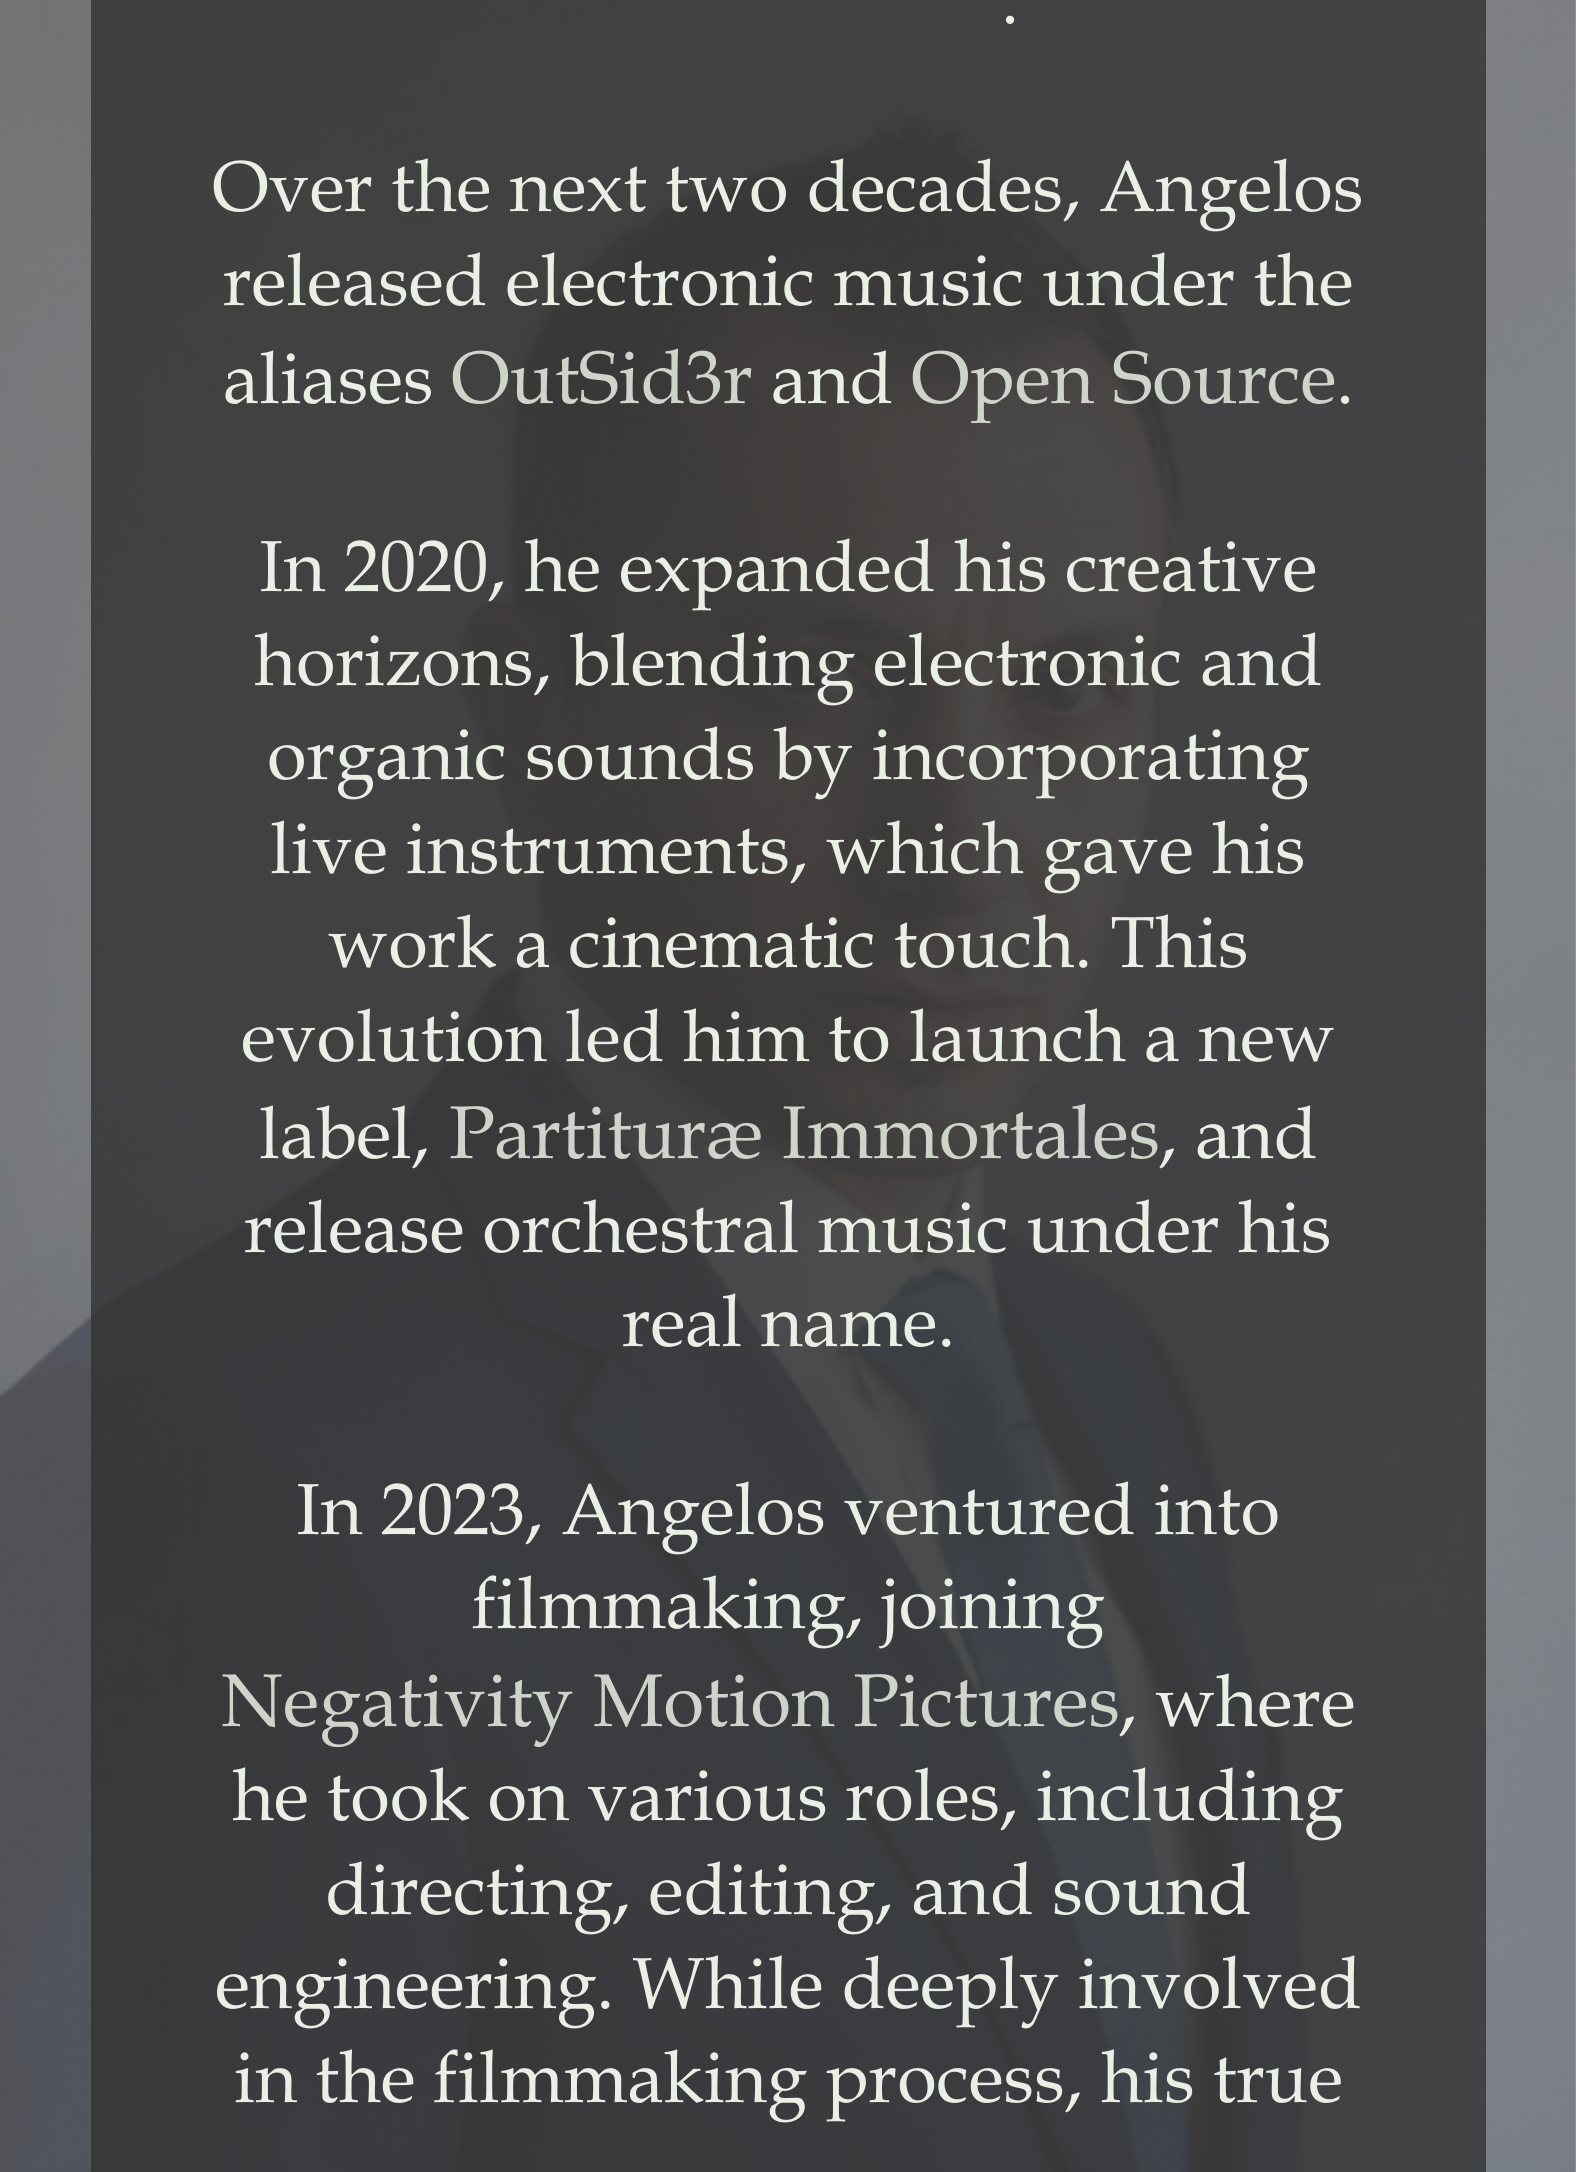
#include <cairo.h>
#include <math.h>
#include <stddef.h>


static void set_color(cairo_t *cr, unsigned color) {
    cairo_set_source_rgb(cr, (color >> 16) / 255.0, (color >> 8 & 255) / 255.0, (color & 255) / 255.0);
}

static void draw_text(cairo_t *cr, double x, double y, const char *s, const char *family, double size, int italic, int bold, unsigned color) {
    cairo_select_font_face(cr, family, italic ? CAIRO_FONT_SLANT_ITALIC : CAIRO_FONT_SLANT_NORMAL,
        bold ? CAIRO_FONT_WEIGHT_BOLD : CAIRO_FONT_WEIGHT_NORMAL);
    cairo_set_font_size(cr, size);
    set_color(cr, color);
    cairo_move_to(cr, x, y);
    cairo_show_text(cr, s);
}

static void draw_image(cairo_t *cr, const char *path, double x, double y, double w, double h) {
    cairo_surface_t *image = cairo_image_surface_create_from_png(path);
    cairo_save(cr);
    cairo_set_source_surface(cr, image, x, y);
    cairo_rectangle(cr, x, y, w, h);
    cairo_fill(cr);
    cairo_restore(cr);
    cairo_surface_destroy(image);
}

int main(void) {
    cairo_surface_t *surface = cairo_image_surface_create(CAIRO_FORMAT_RGB24, 1576, 2172);
    cairo_t *cr = cairo_create(surface);
    cairo_font_options_t *options = cairo_font_options_create();
    cairo_font_options_set_hint_metrics(options, CAIRO_HINT_METRICS_OFF);
    cairo_font_options_set_hint_style(options, CAIRO_HINT_STYLE_NONE);
    cairo_set_font_options(cr, options);
    cairo_set_miter_limit(cr, 4);
    set_color(cr, 0xFFFFFF);
    cairo_paint(cr);
    draw_image(cr, "assets/img1.png", 0, 0, 1576, 2172);
    cairo_set_source_rgba(cr, 0.2, 0.2, 0.2, 0.8);
    cairo_rectangle(cr, 91, 0, 1395, 2172);
    cairo_fill(cr);
    draw_text(cr, 1001, 23, ".", "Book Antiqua", 72.3, 0, 0, 0xE9EFE4);
    draw_text(cr, 212, 211, "Over the next two decades, Angelos", "Book Antiqua", 72.3, 0, 0, 0xE9EFE4);
    draw_text(cr, 223, 305, "released electronic music under the", "Book Antiqua", 72.3, 0, 0, 0xE9EFE4);
    draw_text(cr, 223, 403, "aliases", "Book Antiqua", 72.3, 0, 0, 0xE9EFE4);
    draw_text(cr, 451, 403, "OutSid3r", "Book Antiqua", 74.75, 0, 0, 0xCFD4CB);
    draw_text(cr, 771, 403, "and", "Book Antiqua", 72.3, 0, 0, 0xE9EFE4);
    draw_text(cr, 911, 403, "Open Source", "Book Antiqua", 74.75, 0, 0, 0xCFD4CB);
    draw_text(cr, 1336, 403, ".", "Book Antiqua", 72.3, 0, 0, 0xE9EFE4);
    draw_text(cr, 259, 591, "In 2020, he expanded his creative", "Book Antiqua", 72.3, 0, 0, 0xE9EFE4);
    draw_text(cr, 254, 685, "horizons, blending electronic and", "Book Antiqua", 72.3, 0, 0, 0xE9EFE4);
    draw_text(cr, 267, 779, "organic sounds by incorporating", "Book Antiqua", 72.3, 0, 0, 0xE9EFE4);
    draw_text(cr, 270, 873, "live instruments, which gave his", "Book Antiqua", 72.3, 0, 0, 0xE9EFE4);
    draw_text(cr, 328, 967, "work a cinematic touch. This", "Book Antiqua", 72.3, 0, 0, 0xE9EFE4);
    draw_text(cr, 241, 1061, "evolution led him to launch a new", "Book Antiqua", 72.3, 0, 0, 0xE9EFE4);
    draw_text(cr, 259, 1158, "label,", "Book Antiqua", 72.3, 0, 0, 0xE9EFE4);
    draw_text(cr, 449, 1158, "Partituræ Immortales", "Book Antiqua", 74.75, 0, 0, 0xCFD4CB);
    draw_text(cr, 1159, 1158, ", and", "Book Antiqua", 72.3, 0, 0, 0xE9EFE4);
    draw_text(cr, 244, 1252, "release orchestral music under his", "Book Antiqua", 72.3, 0, 0, 0xE9EFE4);
    draw_text(cr, 622, 1346, "real name.", "Book Antiqua", 72.3, 0, 0, 0xE9EFE4);
    draw_text(cr, 296, 1534, "In 2023, Angelos ventured into", "Book Antiqua", 72.3, 0, 0, 0xE9EFE4);
    draw_text(cr, 472, 1628, "filmmaking, joining", "Book Antiqua", 72.3, 0, 0, 0xE9EFE4);
    draw_text(cr, 221, 1726, "Negativity Motion Pictures", "Book Antiqua", 74.75, 0, 0, 0xCFD4CB);
    draw_text(cr, 1119, 1726, ", where", "Book Antiqua", 72.3, 0, 0, 0xE9EFE4);
    draw_text(cr, 232, 1820, "he took on various roles, including", "Book Antiqua", 72.3, 0, 0, 0xE9EFE4);
    draw_text(cr, 325, 1914, "directing, editing, and sound", "Book Antiqua", 72.3, 0, 0, 0xE9EFE4);
    draw_text(cr, 215, 2008, "engineering. While deeply involved", "Book Antiqua", 72.3, 0, 0, 0xE9EFE4);
    draw_text(cr, 234, 2102, "in the filmmaking process, his true", "Book Antiqua", 72.3, 0, 0, 0xE9EFE4);
    cairo_surface_write_to_png(surface, "output.png");
    cairo_font_options_destroy(options);
    cairo_destroy(cr);
    cairo_surface_destroy(surface);
    return 0;
}
